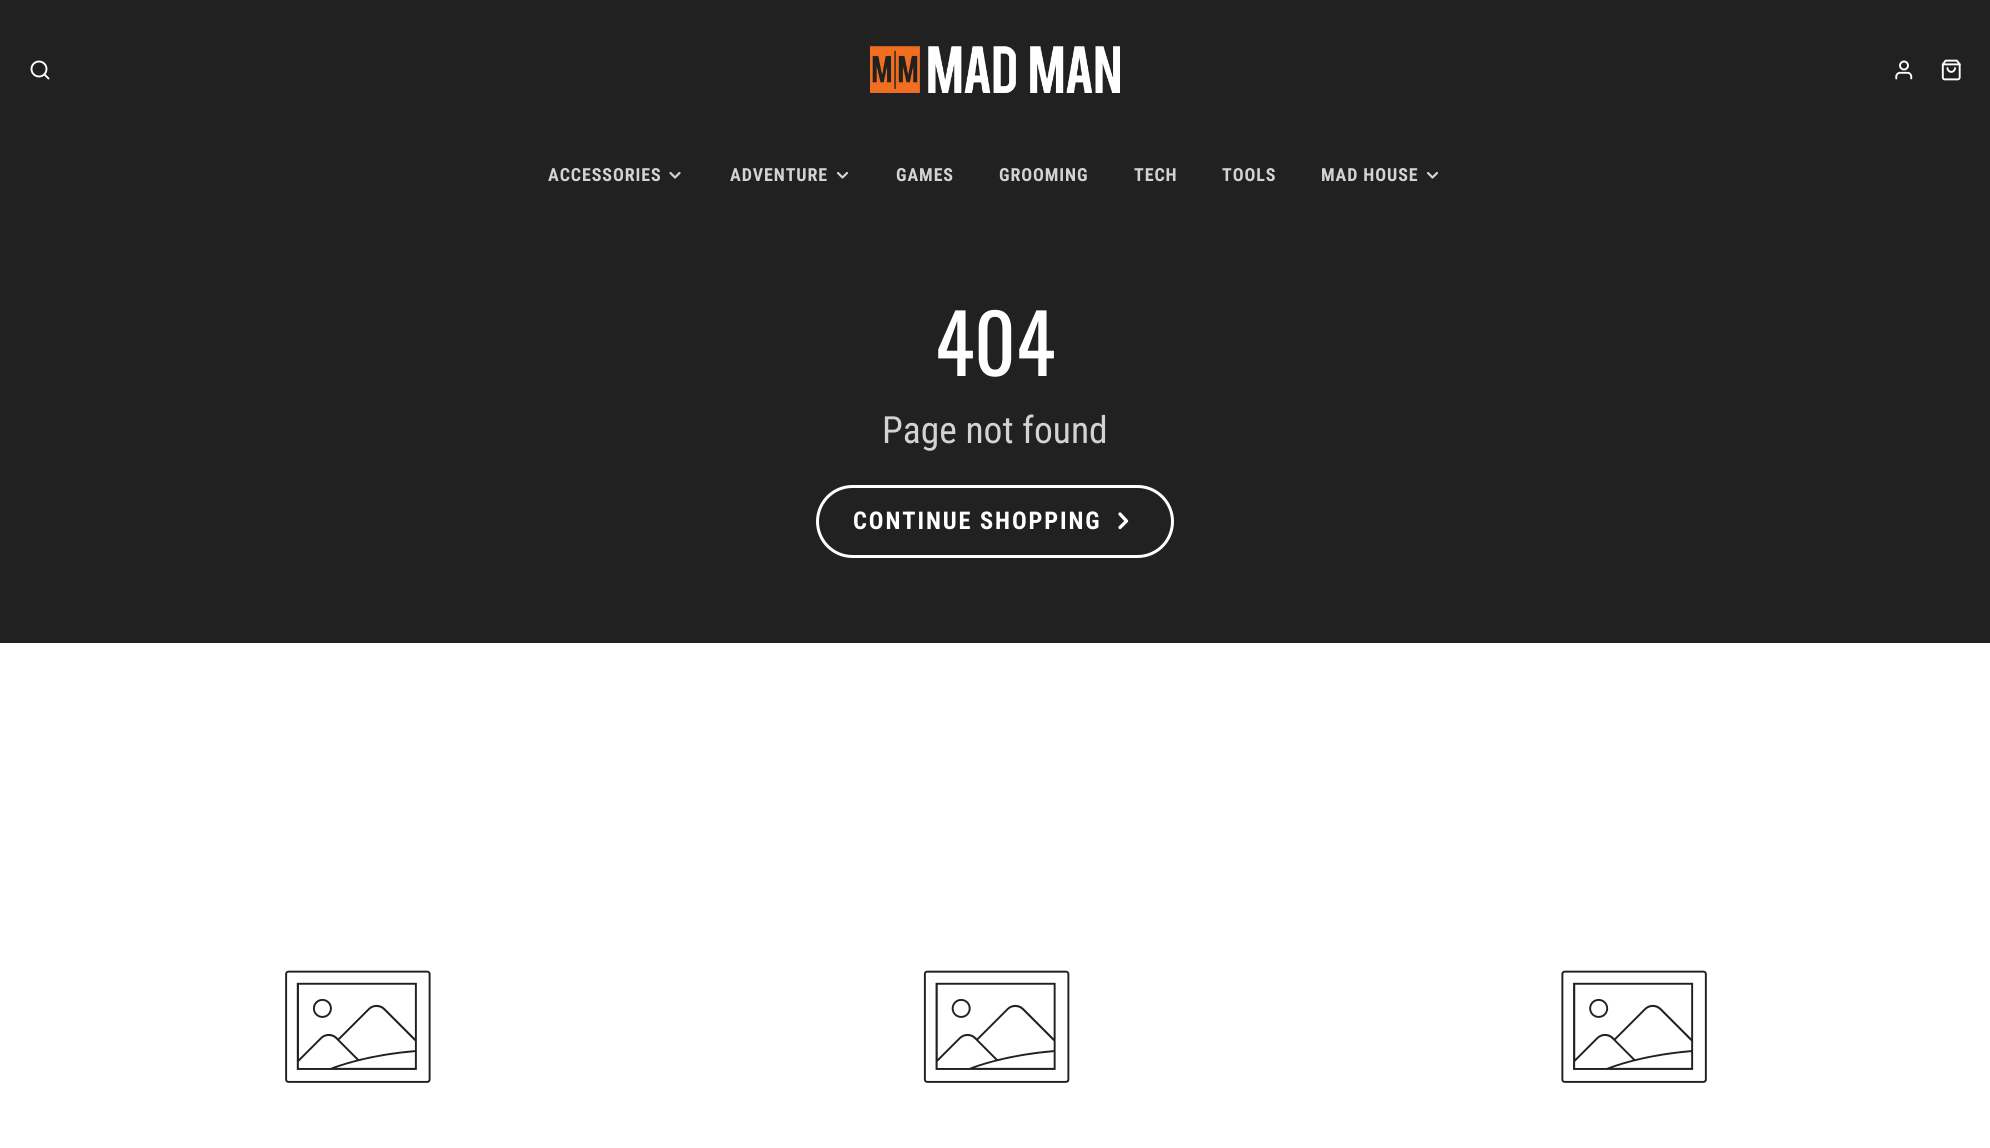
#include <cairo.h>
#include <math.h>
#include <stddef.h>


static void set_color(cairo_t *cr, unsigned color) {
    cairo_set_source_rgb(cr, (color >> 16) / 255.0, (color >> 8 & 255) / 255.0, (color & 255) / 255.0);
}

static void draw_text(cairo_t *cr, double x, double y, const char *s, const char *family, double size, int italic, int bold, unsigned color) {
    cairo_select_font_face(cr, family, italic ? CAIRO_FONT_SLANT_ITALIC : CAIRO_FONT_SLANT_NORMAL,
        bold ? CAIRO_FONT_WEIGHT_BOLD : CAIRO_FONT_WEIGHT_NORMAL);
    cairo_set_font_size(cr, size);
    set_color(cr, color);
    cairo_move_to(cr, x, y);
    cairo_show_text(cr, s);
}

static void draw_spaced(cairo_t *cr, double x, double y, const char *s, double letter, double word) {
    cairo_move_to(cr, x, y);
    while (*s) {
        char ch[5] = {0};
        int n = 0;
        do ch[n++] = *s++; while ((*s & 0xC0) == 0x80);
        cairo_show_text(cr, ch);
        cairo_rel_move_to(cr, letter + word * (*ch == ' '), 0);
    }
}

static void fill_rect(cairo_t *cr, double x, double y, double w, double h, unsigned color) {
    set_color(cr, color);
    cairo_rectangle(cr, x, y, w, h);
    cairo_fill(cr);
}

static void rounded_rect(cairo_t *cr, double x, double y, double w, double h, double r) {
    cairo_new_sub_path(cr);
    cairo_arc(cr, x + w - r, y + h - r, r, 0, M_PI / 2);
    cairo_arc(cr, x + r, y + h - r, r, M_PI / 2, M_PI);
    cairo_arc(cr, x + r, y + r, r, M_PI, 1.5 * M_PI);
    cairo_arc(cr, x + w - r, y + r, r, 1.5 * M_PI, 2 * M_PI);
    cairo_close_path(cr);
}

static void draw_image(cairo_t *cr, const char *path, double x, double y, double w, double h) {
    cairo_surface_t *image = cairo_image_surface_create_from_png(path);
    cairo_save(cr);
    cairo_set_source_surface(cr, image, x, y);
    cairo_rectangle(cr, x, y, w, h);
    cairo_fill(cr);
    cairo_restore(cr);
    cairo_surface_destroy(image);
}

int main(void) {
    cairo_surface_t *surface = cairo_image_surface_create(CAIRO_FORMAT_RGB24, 1990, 1148);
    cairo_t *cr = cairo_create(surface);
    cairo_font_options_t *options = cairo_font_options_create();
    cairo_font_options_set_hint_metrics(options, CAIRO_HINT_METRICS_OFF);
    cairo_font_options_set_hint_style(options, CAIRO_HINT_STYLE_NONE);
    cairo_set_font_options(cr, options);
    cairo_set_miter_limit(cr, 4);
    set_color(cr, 0xFFFFFF);
    cairo_paint(cr);
    fill_rect(cr, 0, 0, 1990, 643, 0x212121);
    cairo_arc(cr, 39, 69, 7.5, 0, 2 * M_PI);
    set_color(cr, 0xFFFFFF);
    cairo_set_line_width(cr, 1.9);
    cairo_stroke(cr);
    cairo_new_path(cr);
    cairo_move_to(cr, 48.5, 78.5);
    cairo_line_to(cr, 44.5, 74.5);
    cairo_set_line_cap(cr, CAIRO_LINE_CAP_ROUND);
    cairo_set_line_join(cr, CAIRO_LINE_JOIN_ROUND);
    cairo_stroke(cr);
    draw_image(cr, "assets/img1.png", 870, 46, 250, 47);
    draw_image(cr, "assets/img2.png", 1895, 60, 18, 20);
    draw_image(cr, "assets/img3.png", 1941, 59, 20, 22);
    cairo_select_font_face(cr, "Roboto Condensed", CAIRO_FONT_SLANT_NORMAL, CAIRO_FONT_WEIGHT_BOLD);
    cairo_set_font_size(cr, 18);
    set_color(cr, 0xD3D3D3);
    draw_spaced(cr, 548, 181, "ACCESSORIES", 0.9, 0);
    cairo_new_path(cr);
    cairo_move_to(cr, 670.5, 173);
    cairo_line_to(cr, 675, 177.5);
    cairo_line_to(cr, 679.5, 173);
    cairo_set_line_width(cr, 2.2);
    cairo_stroke(cr);
    draw_spaced(cr, 730, 181, "ADVENTURE", 0.9, 0);
    cairo_new_path(cr);
    cairo_move_to(cr, 838, 173);
    cairo_line_to(cr, 842.5, 177.5);
    cairo_line_to(cr, 847, 173);
    cairo_stroke(cr);
    draw_spaced(cr, 896, 181, "GAMES", 0.9, 0);
    draw_spaced(cr, 999, 181, "GROOMING", 0.9, 0);
    draw_spaced(cr, 1134, 181, "TECH", 0.9, 0);
    draw_spaced(cr, 1222, 181, "TOOLS", 0.9, 0);
    draw_spaced(cr, 1321, 181, "MAD HOUSE", 0.9, 0);
    cairo_new_path(cr);
    cairo_move_to(cr, 1428, 173);
    cairo_line_to(cr, 1432.5, 177.5);
    cairo_line_to(cr, 1437, 173);
    cairo_stroke(cr);
    draw_text(cr, 935, 376, "404", "Oswald", 81, 0, 0, 0xFFFFFF);
    draw_text(cr, 882, 443, "Page not found", "Roboto Condensed", 37.5, 0, 0, 0xD3D3D3);
    rounded_rect(cr, 817.5, 486.5, 355, 70, 35);
    set_color(cr, 0xFFFFFF);
    cairo_set_line_width(cr, 3);
    cairo_set_line_cap(cr, CAIRO_LINE_CAP_BUTT);
    cairo_set_line_join(cr, CAIRO_LINE_JOIN_MITER);
    cairo_stroke(cr);
    cairo_select_font_face(cr, "Roboto Condensed", CAIRO_FONT_SLANT_NORMAL, CAIRO_FONT_WEIGHT_BOLD);
    cairo_set_font_size(cr, 24.4);
    draw_spaced(cr, 853, 529, "CONTINUE SHOPPING", 1.9, 0);
    cairo_new_path(cr);
    cairo_move_to(cr, 1120, 527.5);
    cairo_line_to(cr, 1126.5, 521);
    cairo_line_to(cr, 1120, 514);
    cairo_set_line_width(cr, 3.3);
    cairo_set_line_cap(cr, CAIRO_LINE_CAP_ROUND);
    cairo_set_line_join(cr, CAIRO_LINE_JOIN_ROUND);
    cairo_stroke(cr);
    draw_image(cr, "assets/img4.png", 285, 970, 146, 113);
    draw_image(cr, "assets/img5.png", 923, 970, 147, 113);
    draw_image(cr, "assets/img6.png", 1561, 970, 146, 113);
    cairo_surface_write_to_png(surface, "output.png");
    cairo_font_options_destroy(options);
    cairo_destroy(cr);
    cairo_surface_destroy(surface);
    return 0;
}
